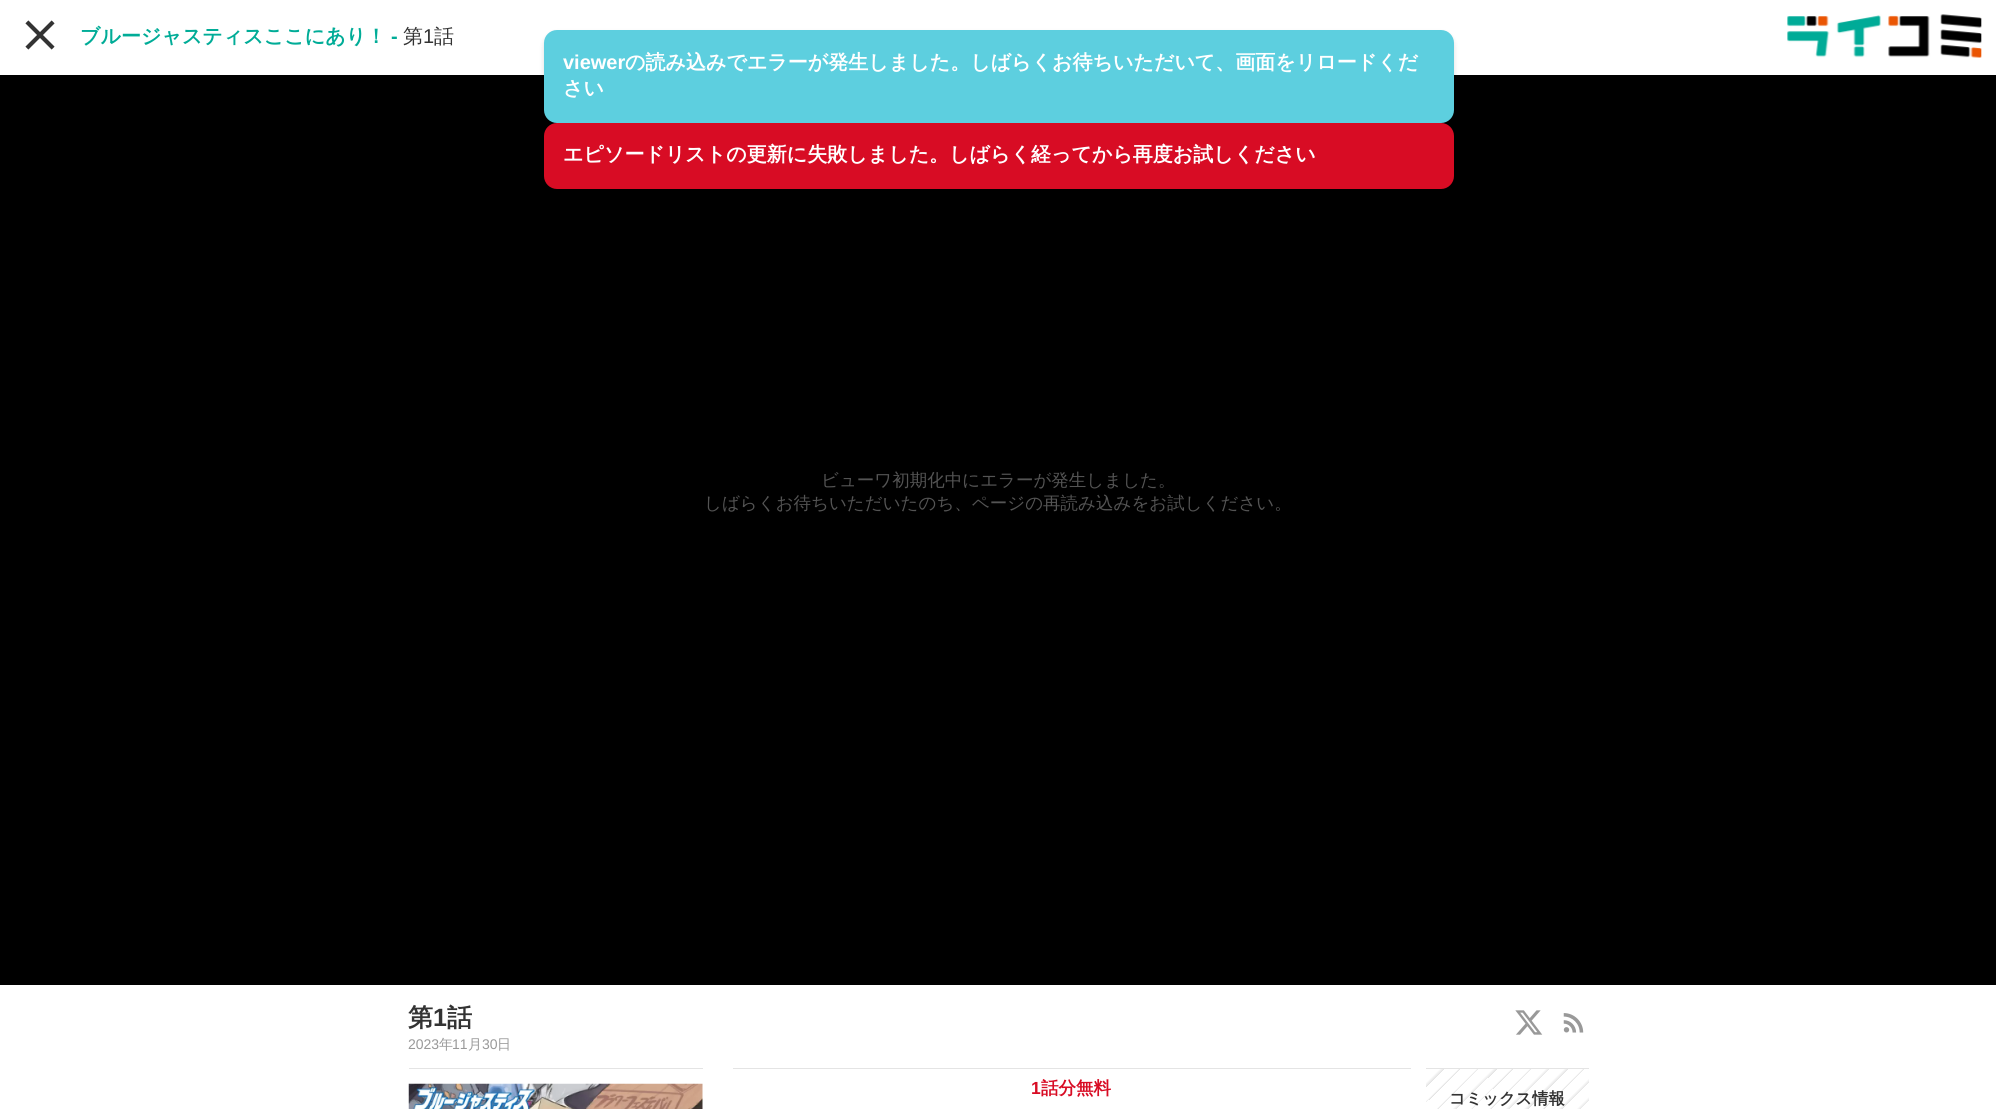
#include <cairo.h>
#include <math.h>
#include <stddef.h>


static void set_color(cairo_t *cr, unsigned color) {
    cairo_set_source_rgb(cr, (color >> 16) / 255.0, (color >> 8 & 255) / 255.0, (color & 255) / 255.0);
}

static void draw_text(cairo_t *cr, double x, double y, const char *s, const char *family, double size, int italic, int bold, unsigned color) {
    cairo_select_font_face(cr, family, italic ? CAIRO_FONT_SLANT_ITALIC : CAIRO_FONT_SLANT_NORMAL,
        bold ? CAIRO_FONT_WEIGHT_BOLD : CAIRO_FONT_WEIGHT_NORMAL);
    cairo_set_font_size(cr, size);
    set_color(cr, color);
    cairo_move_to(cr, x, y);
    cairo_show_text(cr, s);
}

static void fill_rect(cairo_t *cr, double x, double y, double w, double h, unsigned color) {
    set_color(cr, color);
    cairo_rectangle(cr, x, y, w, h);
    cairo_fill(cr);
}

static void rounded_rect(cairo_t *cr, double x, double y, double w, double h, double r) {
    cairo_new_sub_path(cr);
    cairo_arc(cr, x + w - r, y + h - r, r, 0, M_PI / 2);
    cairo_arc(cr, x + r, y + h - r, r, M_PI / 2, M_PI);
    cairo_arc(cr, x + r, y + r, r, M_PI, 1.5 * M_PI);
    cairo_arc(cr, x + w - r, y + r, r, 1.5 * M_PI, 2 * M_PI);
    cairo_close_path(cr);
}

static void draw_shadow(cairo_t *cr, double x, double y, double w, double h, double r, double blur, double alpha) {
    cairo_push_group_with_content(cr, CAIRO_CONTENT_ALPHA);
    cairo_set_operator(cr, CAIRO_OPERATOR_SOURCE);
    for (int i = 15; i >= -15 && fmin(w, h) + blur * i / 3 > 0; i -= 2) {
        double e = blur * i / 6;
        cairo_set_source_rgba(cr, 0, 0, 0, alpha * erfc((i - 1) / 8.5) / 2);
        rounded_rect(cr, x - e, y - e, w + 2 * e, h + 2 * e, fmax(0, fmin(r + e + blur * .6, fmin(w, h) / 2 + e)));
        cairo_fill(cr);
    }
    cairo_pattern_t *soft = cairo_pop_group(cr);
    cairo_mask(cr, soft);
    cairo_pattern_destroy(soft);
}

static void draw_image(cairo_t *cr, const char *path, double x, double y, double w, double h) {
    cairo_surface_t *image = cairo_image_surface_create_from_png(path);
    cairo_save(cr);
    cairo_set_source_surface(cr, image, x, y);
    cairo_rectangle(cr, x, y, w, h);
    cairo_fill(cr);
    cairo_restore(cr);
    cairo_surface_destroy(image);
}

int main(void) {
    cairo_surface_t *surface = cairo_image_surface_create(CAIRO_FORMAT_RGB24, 1996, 1109);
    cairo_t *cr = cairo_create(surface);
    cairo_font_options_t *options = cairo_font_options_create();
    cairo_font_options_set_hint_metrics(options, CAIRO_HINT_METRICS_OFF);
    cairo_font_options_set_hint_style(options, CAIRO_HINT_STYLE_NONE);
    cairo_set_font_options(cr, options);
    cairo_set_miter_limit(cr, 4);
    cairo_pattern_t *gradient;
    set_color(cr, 0xFFFFFF);
    cairo_paint(cr);
    draw_image(cr, "assets/img1.png", 25, 20, 30, 30);
    draw_text(cr, 80, 43, "ブルージャスティスここにあり！", "WenQuanYi Zen Hei", 20, 0, 1, 0x00AC97);
    draw_text(cr, 391, 43, "-", "Liberation Sans", 20, 0, 1, 0x00AC97);
    draw_text(cr, 403, 43, "第", "WenQuanYi Zen Hei Medium", 20, 0, 0, 0x333333);
    draw_text(cr, 423, 43, "1", "Liberation Sans", 20, 0, 0, 0x333333);
    draw_text(cr, 434, 43, "話", "WenQuanYi Zen Hei Medium", 20, 0, 0, 0x333333);
    draw_image(cr, "assets/img2.png", 1787, 14, 195, 44);
    fill_rect(cr, 0, 75, 1996, 910, 0x000000);
    draw_text(cr, 821, 486, "ビューワ初期化中にエラーが発生しました。", "WenQuanYi Zen Hei Medium", 17.5, 0, 0, 0x545454);
    draw_text(cr, 704, 509, "しばらくお待ちいただいたのち、ページの再読み込みをお試しください。", "WenQuanYi Zen Hei Medium", 17.5, 0, 0, 0x545454);
    draw_text(cr, 408, 1026, "第", "WenQuanYi Zen Hei", 25, 0, 1, 0x333333);
    draw_text(cr, 433, 1026, "1", "Liberation Sans", 25, 0, 1, 0x333333);
    draw_text(cr, 447, 1026, "話", "WenQuanYi Zen Hei", 25, 0, 1, 0x333333);
    draw_text(cr, 408, 1049, "2023", "Liberation Sans", 14, 0, 0, 0x999999);
    draw_text(cr, 439, 1049, "年", "WenQuanYi Zen Hei Medium", 14, 0, 0, 0x999999);
    draw_text(cr, 452, 1049, "11", "Liberation Sans", 14, 0, 0, 0x999999);
    draw_text(cr, 468, 1049, "月", "WenQuanYi Zen Hei Medium", 14, 0, 0, 0x999999);
    draw_text(cr, 482, 1049, "30", "Liberation Sans", 14, 0, 0, 0x999999);
    draw_text(cr, 497, 1049, "日", "WenQuanYi Zen Hei Medium", 14, 0, 0, 0x999999);
    draw_image(cr, "assets/img3.png", 1515, 1010, 28, 25);
    draw_image(cr, "assets/img4.png", 1563, 1013, 21, 20);
    fill_rect(cr, 409, 1068, 294, 1, 0xE4E4E4);
    draw_image(cr, "assets/img5.png", 408, 1083, 295, 26);
    fill_rect(cr, 733, 1068, 678, 1, 0xE4E4E4);
    draw_text(cr, 1031, 1094, "1", "Liberation Sans", 17.5, 0, 1, 0xD80C24);
    draw_text(cr, 1041, 1094, "話分無料", "WenQuanYi Zen Hei", 17.5, 0, 1, 0xD80C24);
    gradient = cairo_pattern_create_linear(1452, 1043, 1566, 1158);
    cairo_pattern_add_color_stop_rgba(gradient, 0, 1, 1, 1, 1);
    cairo_pattern_add_color_stop_rgba(gradient, 0.06, 1, 1, 1, 1);
    cairo_pattern_add_color_stop_rgba(gradient, 0.08, 0.894, 0.894, 0.894, 1);
    cairo_pattern_add_color_stop_rgba(gradient, 0.08, 1, 1, 1, 1);
    cairo_pattern_add_color_stop_rgba(gradient, 0.14, 1, 1, 1, 1);
    cairo_pattern_add_color_stop_rgba(gradient, 0.15, 0.894, 0.894, 0.894, 1);
    cairo_pattern_add_color_stop_rgba(gradient, 0.15, 1, 1, 1, 1);
    cairo_pattern_add_color_stop_rgba(gradient, 0.22, 1, 1, 1, 1);
    cairo_pattern_add_color_stop_rgba(gradient, 0.23, 0.894, 0.894, 0.894, 1);
    cairo_pattern_add_color_stop_rgba(gradient, 0.23, 1, 1, 1, 1);
    cairo_pattern_add_color_stop_rgba(gradient, 0.29, 1, 1, 1, 1);
    cairo_pattern_add_color_stop_rgba(gradient, 0.31, 0.894, 0.894, 0.894, 1);
    cairo_pattern_add_color_stop_rgba(gradient, 0.31, 1, 1, 1, 1);
    cairo_pattern_add_color_stop_rgba(gradient, 0.37, 1, 1, 1, 1);
    cairo_pattern_add_color_stop_rgba(gradient, 0.38, 0.894, 0.894, 0.894, 1);
    cairo_pattern_add_color_stop_rgba(gradient, 0.38, 1, 1, 1, 1);
    cairo_pattern_add_color_stop_rgba(gradient, 0.45, 1, 1, 1, 1);
    cairo_pattern_add_color_stop_rgba(gradient, 0.46, 0.894, 0.894, 0.894, 1);
    cairo_pattern_add_color_stop_rgba(gradient, 0.46, 1, 1, 1, 1);
    cairo_pattern_add_color_stop_rgba(gradient, 0.52, 1, 1, 1, 1);
    cairo_pattern_add_color_stop_rgba(gradient, 0.54, 0.894, 0.894, 0.894, 1);
    cairo_pattern_add_color_stop_rgba(gradient, 0.54, 1, 1, 1, 1);
    cairo_pattern_add_color_stop_rgba(gradient, 0.6, 1, 1, 1, 1);
    cairo_pattern_add_color_stop_rgba(gradient, 0.62, 0.894, 0.894, 0.894, 1);
    cairo_pattern_add_color_stop_rgba(gradient, 0.62, 1, 1, 1, 1);
    cairo_pattern_add_color_stop_rgba(gradient, 0.68, 1, 1, 1, 1);
    cairo_pattern_add_color_stop_rgba(gradient, 0.69, 0.894, 0.894, 0.894, 1);
    cairo_pattern_add_color_stop_rgba(gradient, 0.69, 1, 1, 1, 1);
    cairo_pattern_add_color_stop_rgba(gradient, 0.75, 1, 1, 1, 1);
    cairo_pattern_add_color_stop_rgba(gradient, 0.77, 0.894, 0.894, 0.894, 1);
    cairo_pattern_add_color_stop_rgba(gradient, 0.77, 1, 1, 1, 1);
    cairo_pattern_add_color_stop_rgba(gradient, 0.83, 1, 1, 1, 1);
    cairo_pattern_add_color_stop_rgba(gradient, 0.85, 0.894, 0.894, 0.894, 1);
    cairo_pattern_add_color_stop_rgba(gradient, 0.85, 1, 1, 1, 1);
    cairo_pattern_add_color_stop_rgba(gradient, 0.91, 1, 1, 1, 1);
    cairo_pattern_add_color_stop_rgba(gradient, 0.92, 0.894, 0.894, 0.894, 1);
    cairo_pattern_add_color_stop_rgba(gradient, 0.92, 1, 1, 1, 1);
    cairo_pattern_add_color_stop_rgba(gradient, 0.98, 1, 1, 1, 1);
    cairo_pattern_add_color_stop_rgba(gradient, 1, 0.894, 0.894, 0.894, 1);
    cairo_set_source(cr, gradient);
    cairo_pattern_destroy(gradient);
    cairo_rectangle(cr, 1426, 1069, 163, 40);
    cairo_fill(cr);
    fill_rect(cr, 1426, 1068, 163, 1, 0xE4E4E4);
    draw_text(cr, 1449, 1104, "コミックス情報", "WenQuanYi Zen Hei", 16.25, 0, 1, 0x333333);
    set_color(cr, 0x000000);
    draw_shadow(cr, 544, 33, 910, 92, 13, 2.5, 0.13);
    set_color(cr, 0x5DCFDF);
    rounded_rect(cr, 544, 30, 910, 93, 13);
    cairo_fill(cr);
    draw_text(cr, 563, 69, "viewer", "Liberation Sans", 20, 0, 1, 0xFFFFFF);
    draw_text(cr, 625, 69, "の読み込みでエラーが発生しました。しばらくお待ちいただいて、画面をリロードくだ", "WenQuanYi Zen Hei", 20, 0, 1, 0xFFFFFF);
    draw_text(cr, 563, 95, "さい", "WenQuanYi Zen Hei", 20, 0, 1, 0xFFFFFF);
    set_color(cr, 0xD80C24);
    rounded_rect(cr, 544, 123, 910, 66, 13);
    cairo_fill(cr);
    draw_text(cr, 563, 161, "エピソードリストの更新に失敗しました。しばらく経ってから再度お試しください", "WenQuanYi Zen Hei", 20, 0, 1, 0xFFFFFF);
    cairo_surface_write_to_png(surface, "output.png");
    cairo_font_options_destroy(options);
    cairo_destroy(cr);
    cairo_surface_destroy(surface);
    return 0;
}
